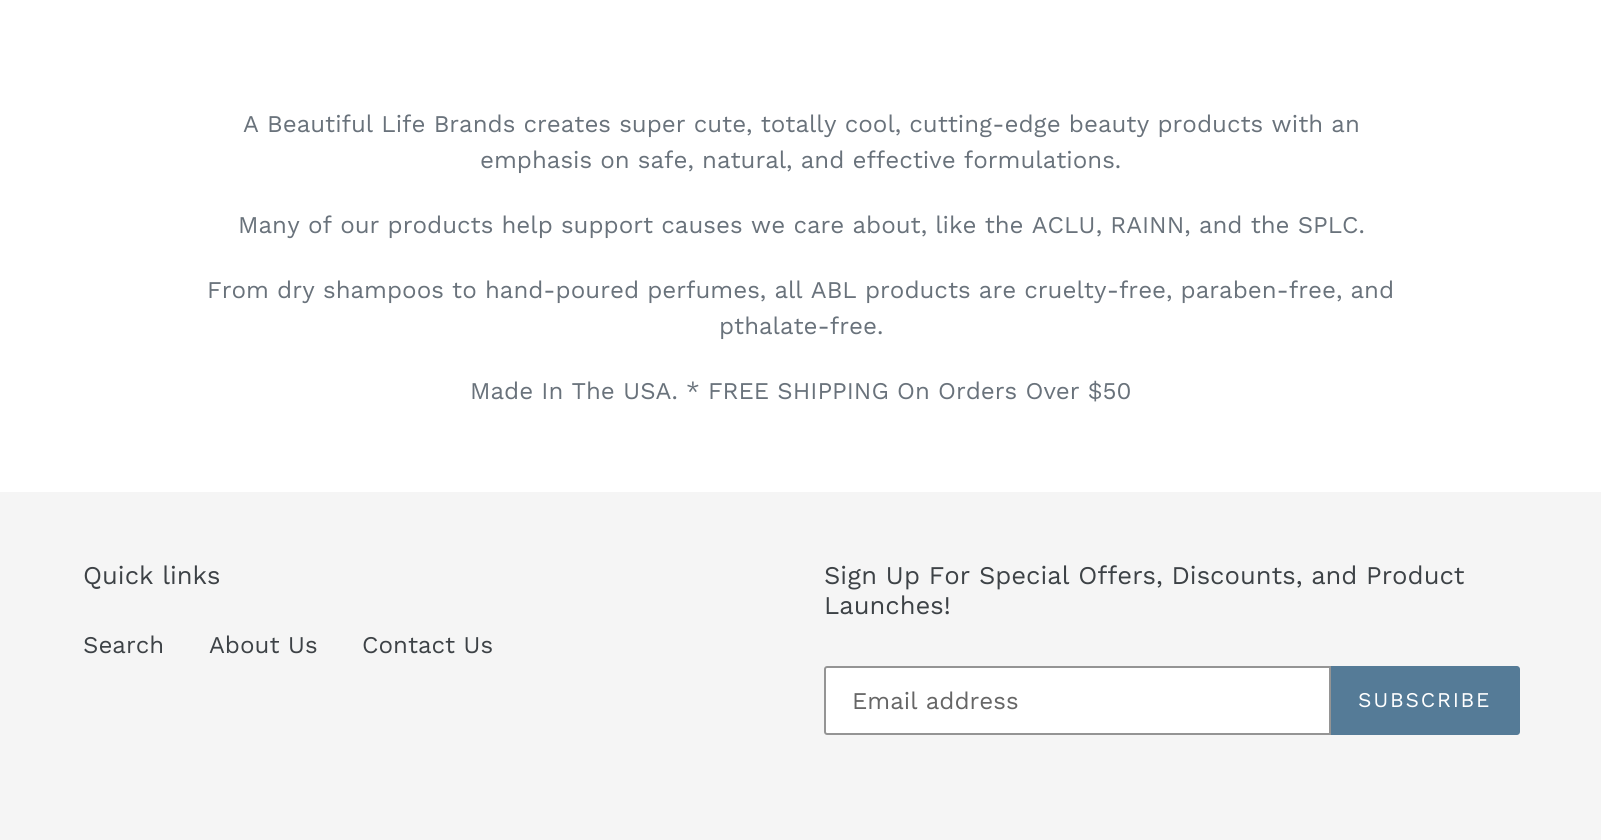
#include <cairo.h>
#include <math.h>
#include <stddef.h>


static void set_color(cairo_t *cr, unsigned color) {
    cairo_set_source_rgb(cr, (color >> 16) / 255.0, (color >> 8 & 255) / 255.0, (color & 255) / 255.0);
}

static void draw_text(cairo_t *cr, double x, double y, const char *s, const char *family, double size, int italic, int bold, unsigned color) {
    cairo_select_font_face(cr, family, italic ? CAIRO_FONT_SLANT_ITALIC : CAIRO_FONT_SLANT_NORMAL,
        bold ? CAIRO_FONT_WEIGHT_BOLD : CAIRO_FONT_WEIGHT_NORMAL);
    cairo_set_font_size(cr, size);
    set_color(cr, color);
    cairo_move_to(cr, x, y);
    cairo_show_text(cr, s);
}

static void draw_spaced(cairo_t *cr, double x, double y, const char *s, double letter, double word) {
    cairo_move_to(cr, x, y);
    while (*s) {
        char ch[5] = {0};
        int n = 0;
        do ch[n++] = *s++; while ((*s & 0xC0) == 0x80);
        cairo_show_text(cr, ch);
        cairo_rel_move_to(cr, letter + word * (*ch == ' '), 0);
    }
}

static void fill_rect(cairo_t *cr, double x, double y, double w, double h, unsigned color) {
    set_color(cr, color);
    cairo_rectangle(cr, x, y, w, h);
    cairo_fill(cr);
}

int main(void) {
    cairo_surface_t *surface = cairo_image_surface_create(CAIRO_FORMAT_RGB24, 1601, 840);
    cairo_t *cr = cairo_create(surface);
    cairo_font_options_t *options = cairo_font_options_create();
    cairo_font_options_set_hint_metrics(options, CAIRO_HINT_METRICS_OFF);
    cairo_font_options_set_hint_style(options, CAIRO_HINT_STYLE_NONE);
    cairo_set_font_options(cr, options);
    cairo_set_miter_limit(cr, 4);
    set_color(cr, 0xFFFFFF);
    cairo_paint(cr);
    draw_text(cr, 243, 132, "A Beautiful Life Brands creates super cute, totally cool, cutting-edge beauty products with an", "Work Sans", 24, 0, 0, 0x69727B);
    draw_text(cr, 480, 168, "emphasis on safe, natural, and effective formulations.", "Work Sans", 24, 0, 0, 0x69727B);
    draw_text(cr, 238, 233, "Many of our products help support causes we care about, like the ACLU, RAINN, and the SPLC.", "Work Sans", 24, 0, 0, 0x69727B);
    draw_text(cr, 207, 298, "From dry shampoos to hand-poured perfumes, all ABL products are cruelty-free, paraben-free, and", "Work Sans", 24, 0, 0, 0x69727B);
    draw_text(cr, 719, 334, "pthalate-free.", "Work Sans", 24, 0, 0, 0x69727B);
    draw_text(cr, 470, 399, "Made In The USA. * FREE SHIPPING On Orders Over $50", "Work Sans", 24, 0, 0, 0x69727B);
    fill_rect(cr, 0, 492, 1601, 348, 0xF5F5F5);
    draw_text(cr, 83, 584, "Quick links", "Work Sans", 25.5, 0, 0, 0x3D4246);
    draw_text(cr, 83, 653, "Search", "Work Sans", 24, 0, 0, 0x3D4246);
    draw_text(cr, 209, 653, "About Us", "Work Sans", 24, 0, 0, 0x3D4246);
    draw_text(cr, 362, 653, "Contact Us", "Work Sans", 24, 0, 0, 0x3D4246);
    draw_text(cr, 824, 584, "Sign Up For Special Offers, Discounts, and Product", "Work Sans", 25.5, 0, 0, 0x3D4246);
    draw_text(cr, 824, 614, "Launches!", "Work Sans", 25.5, 0, 0, 0x3D4246);
    set_color(cr, 0xFFFFFF);
    cairo_new_path(cr);
    cairo_move_to(cr, 827, 667);
    cairo_line_to(cr, 1330, 667);
    cairo_line_to(cr, 1330, 734);
    cairo_line_to(cr, 827, 734);
    cairo_curve_to(cr, 826, 734, 825, 733, 825, 732);
    cairo_line_to(cr, 825, 669);
    cairo_curve_to(cr, 825, 668, 826, 667, 827, 667);
    cairo_close_path(cr);
    cairo_fill_preserve(cr);
    set_color(cr, 0x949494);
    cairo_stroke(cr);
    draw_text(cr, 852, 709, "Email address", "Work Sans", 24, 0, 0, 0x666666);
    set_color(cr, 0x557B97);
    cairo_new_path(cr);
    cairo_move_to(cr, 1331, 666);
    cairo_line_to(cr, 1517, 666);
    cairo_curve_to(cr, 1518.5, 666, 1520, 667.5, 1520, 669);
    cairo_line_to(cr, 1520, 732);
    cairo_curve_to(cr, 1520, 733.5, 1518.5, 735, 1517, 735);
    cairo_line_to(cr, 1331, 735);
    cairo_close_path(cr);
    cairo_fill(cr);
    cairo_set_font_size(cr, 21);
    set_color(cr, 0xFFFFFF);
    draw_spaced(cr, 1358, 707, "SUBSCRIBE", 1.75, 0);
    cairo_surface_write_to_png(surface, "output.png");
    cairo_font_options_destroy(options);
    cairo_destroy(cr);
    cairo_surface_destroy(surface);
    return 0;
}
